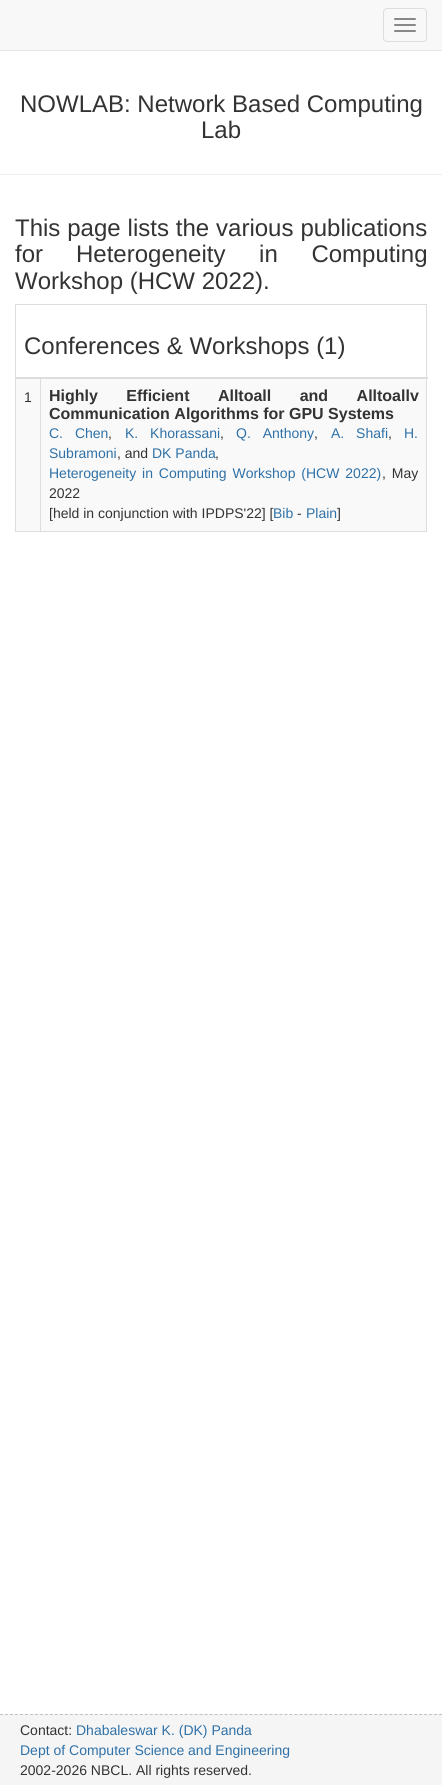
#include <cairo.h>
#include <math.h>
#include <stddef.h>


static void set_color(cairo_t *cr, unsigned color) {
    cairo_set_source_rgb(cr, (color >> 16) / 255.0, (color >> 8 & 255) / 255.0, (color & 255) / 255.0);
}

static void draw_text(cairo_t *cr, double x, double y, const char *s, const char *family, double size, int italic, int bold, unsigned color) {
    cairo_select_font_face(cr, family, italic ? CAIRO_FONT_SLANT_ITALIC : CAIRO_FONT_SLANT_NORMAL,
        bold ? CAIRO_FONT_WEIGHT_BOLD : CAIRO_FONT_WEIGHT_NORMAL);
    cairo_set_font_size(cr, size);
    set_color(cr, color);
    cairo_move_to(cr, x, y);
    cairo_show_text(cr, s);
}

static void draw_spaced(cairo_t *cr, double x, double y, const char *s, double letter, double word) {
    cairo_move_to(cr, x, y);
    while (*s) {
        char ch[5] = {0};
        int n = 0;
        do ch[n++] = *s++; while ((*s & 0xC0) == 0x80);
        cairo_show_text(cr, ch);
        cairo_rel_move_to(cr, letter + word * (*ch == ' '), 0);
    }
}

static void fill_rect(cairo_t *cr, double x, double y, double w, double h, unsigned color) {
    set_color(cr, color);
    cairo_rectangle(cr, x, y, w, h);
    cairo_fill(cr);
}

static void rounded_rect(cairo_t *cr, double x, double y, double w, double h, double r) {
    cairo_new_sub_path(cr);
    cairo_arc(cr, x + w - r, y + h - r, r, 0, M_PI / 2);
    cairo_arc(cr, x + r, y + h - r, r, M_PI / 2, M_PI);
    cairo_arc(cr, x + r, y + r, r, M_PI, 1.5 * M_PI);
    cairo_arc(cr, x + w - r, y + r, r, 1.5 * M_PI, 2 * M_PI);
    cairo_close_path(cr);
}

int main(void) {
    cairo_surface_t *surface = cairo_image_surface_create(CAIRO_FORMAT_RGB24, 442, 1785);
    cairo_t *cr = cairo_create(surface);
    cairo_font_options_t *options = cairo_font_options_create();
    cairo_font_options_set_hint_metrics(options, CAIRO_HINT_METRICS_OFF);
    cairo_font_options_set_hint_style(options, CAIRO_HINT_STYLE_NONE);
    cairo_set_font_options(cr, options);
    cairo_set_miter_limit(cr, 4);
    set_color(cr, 0xFFFFFF);
    cairo_paint(cr);
    fill_rect(cr, 0, 0, 442, 50, 0xF8F8F8);
    fill_rect(cr, 0, 50, 442, 1, 0xE7E7E7);
    rounded_rect(cr, 383.5, 8.5, 43, 33, 3.5);
    set_color(cr, 0xDDDDDD);
    cairo_set_line_width(cr, 1);
    cairo_stroke(cr);
    set_color(cr, 0x888888);
    rounded_rect(cr, 394, 18, 22, 2, 1);
    cairo_fill(cr);
    rounded_rect(cr, 394, 24, 22, 2, 1);
    cairo_fill(cr);
    rounded_rect(cr, 394, 30, 22, 2, 1);
    cairo_fill(cr);
    draw_text(cr, 20, 112, "NOWLAB: Network Based Computing", "Liberation Sans", 24, 0, 0, 0x333333);
    draw_text(cr, 201, 138, "Lab", "Liberation Sans", 24, 0, 0, 0x333333);
    fill_rect(cr, 0, 174, 442, 1, 0xEEEEEE);
    set_color(cr, 0x333333);
    draw_spaced(cr, 15, 236, "This page lists the various publications", 0, 0.25);
    draw_text(cr, 15, 262, "for", "Liberation Sans", 24, 0, 0, 0x333333);
    draw_spaced(cr, 76, 262, "Heterogeneity in Computing", 0, 27);
    draw_text(cr, 15, 289, "Workshop (HCW 2022).", "Liberation Sans", 24, 0, 0, 0x333333);
    fill_rect(cr, 15, 304, 412, 1, 0xDDDDDD);
    fill_rect(cr, 426, 304, 1, 228, 0xDDDDDD);
    fill_rect(cr, 15, 531, 412, 1, 0xDDDDDD);
    fill_rect(cr, 15, 304, 1, 228, 0xDDDDDD);
    fill_rect(cr, 16, 379, 410, 152, 0xF9F9F9);
    fill_rect(cr, 40, 378, 1, 154, 0xDDDDDD);
    fill_rect(cr, 15, 377, 413, 2, 0xDDDDDD);
    draw_text(cr, 24, 354, "Conferences & Workshops (1)", "Liberation Sans", 24, 0, 0, 0x333333);
    draw_text(cr, 24, 402, "1", "Liberation Sans", 14, 0, 0, 0x333333);
    cairo_select_font_face(cr, "Liberation Sans", CAIRO_FONT_SLANT_NORMAL, CAIRO_FONT_WEIGHT_BOLD);
    cairo_set_font_size(cr, 16);
    draw_spaced(cr, 49, 401, "Highly Efficient Alltoall and Alltoallv", 0, 24);
    draw_text(cr, 49, 419, "Communication Algorithms for GPU Systems", "Liberation Sans", 16, 0, 1, 0x333333);
    cairo_select_font_face(cr, "Liberation Sans", CAIRO_FONT_SLANT_NORMAL, CAIRO_FONT_WEIGHT_NORMAL);
    cairo_set_font_size(cr, 14);
    set_color(cr, 0x2F71A7);
    draw_spaced(cr, 49, 438, "C. Chen", 0, 8);
    draw_text(cr, 108, 438, ",", "Liberation Sans", 14, 0, 0, 0x333333);
    set_color(cr, 0x2F71A7);
    draw_spaced(cr, 125, 438, "K. Khorassani", 0, 8);
    draw_text(cr, 220, 438, ",", "Liberation Sans", 14, 0, 0, 0x333333);
    set_color(cr, 0x2F71A7);
    draw_spaced(cr, 236, 438, "Q. Anthony", 0, 8);
    draw_text(cr, 314, 438, ",", "Liberation Sans", 14, 0, 0, 0x333333);
    set_color(cr, 0x2F71A7);
    draw_spaced(cr, 331, 438, "A. Shafi", 0, 8);
    draw_text(cr, 388, 438, ",", "Liberation Sans", 14, 0, 0, 0x333333);
    draw_text(cr, 404, 438, "H.", "Liberation Sans", 14, 0, 0, 0x2F71A7);
    draw_text(cr, 49, 458, "Subramoni", "Liberation Sans", 14, 0, 0, 0x2F71A7);
    draw_text(cr, 117, 458, ", and", "Liberation Sans", 14, 0, 0, 0x333333);
    draw_text(cr, 152, 458, "DK Panda", "Liberation Sans", 14, 0, 0, 0x2F71A7);
    draw_text(cr, 215, 458, ",", "Liberation Sans", 14, 0, 0, 0x333333);
    set_color(cr, 0x2F71A7);
    draw_spaced(cr, 49, 478, "Heterogeneity in Computing Workshop (HCW 2022)", 0, 2);
    set_color(cr, 0x333333);
    draw_spaced(cr, 382, 478, ", May", 0, 2);
    draw_text(cr, 49, 498, "2022", "Liberation Sans", 14, 0, 0, 0x333333);
    draw_text(cr, 49, 518, "[held in conjunction with IPDPS'22] [", "Liberation Sans", 14, 0, 0, 0x333333);
    draw_text(cr, 273, 518, "Bib", "Liberation Sans", 14, 0, 0, 0x2F71A7);
    draw_text(cr, 297, 518, "-", "Liberation Sans", 14, 0, 0, 0x333333);
    draw_text(cr, 306, 518, "Plain", "Liberation Sans", 14, 0, 0, 0x2F71A7);
    draw_text(cr, 337, 518, "]", "Liberation Sans", 14, 0, 0, 0x333333);
    fill_rect(cr, 0, 1714, 442, 71, 0xF5F5F5);
    cairo_new_path(cr);
    cairo_move_to(cr, 0, 1714.5);
    cairo_line_to(cr, 442, 1714.5);
    set_color(cr, 0xC0C0C0);
    cairo_set_dash(cr, (double[]){3, 1.99}, 2, 0);
    cairo_stroke(cr);
    draw_text(cr, 20, 1735, "Contact:", "Liberation Sans", 14, 0, 0, 0x333333);
    draw_text(cr, 76, 1735, "Dhabaleswar K. (DK) Panda", "Liberation Sans", 14, 0, 0, 0x2F71A7);
    draw_text(cr, 20, 1755, "Dept of Computer Science and Engineering", "Liberation Sans", 14, 0, 0, 0x2F71A7);
    draw_text(cr, 20, 1775, "2002-2026 NBCL. All rights reserved.", "Liberation Sans", 14, 0, 0, 0x333333);
    cairo_surface_write_to_png(surface, "output.png");
    cairo_font_options_destroy(options);
    cairo_destroy(cr);
    cairo_surface_destroy(surface);
    return 0;
}
